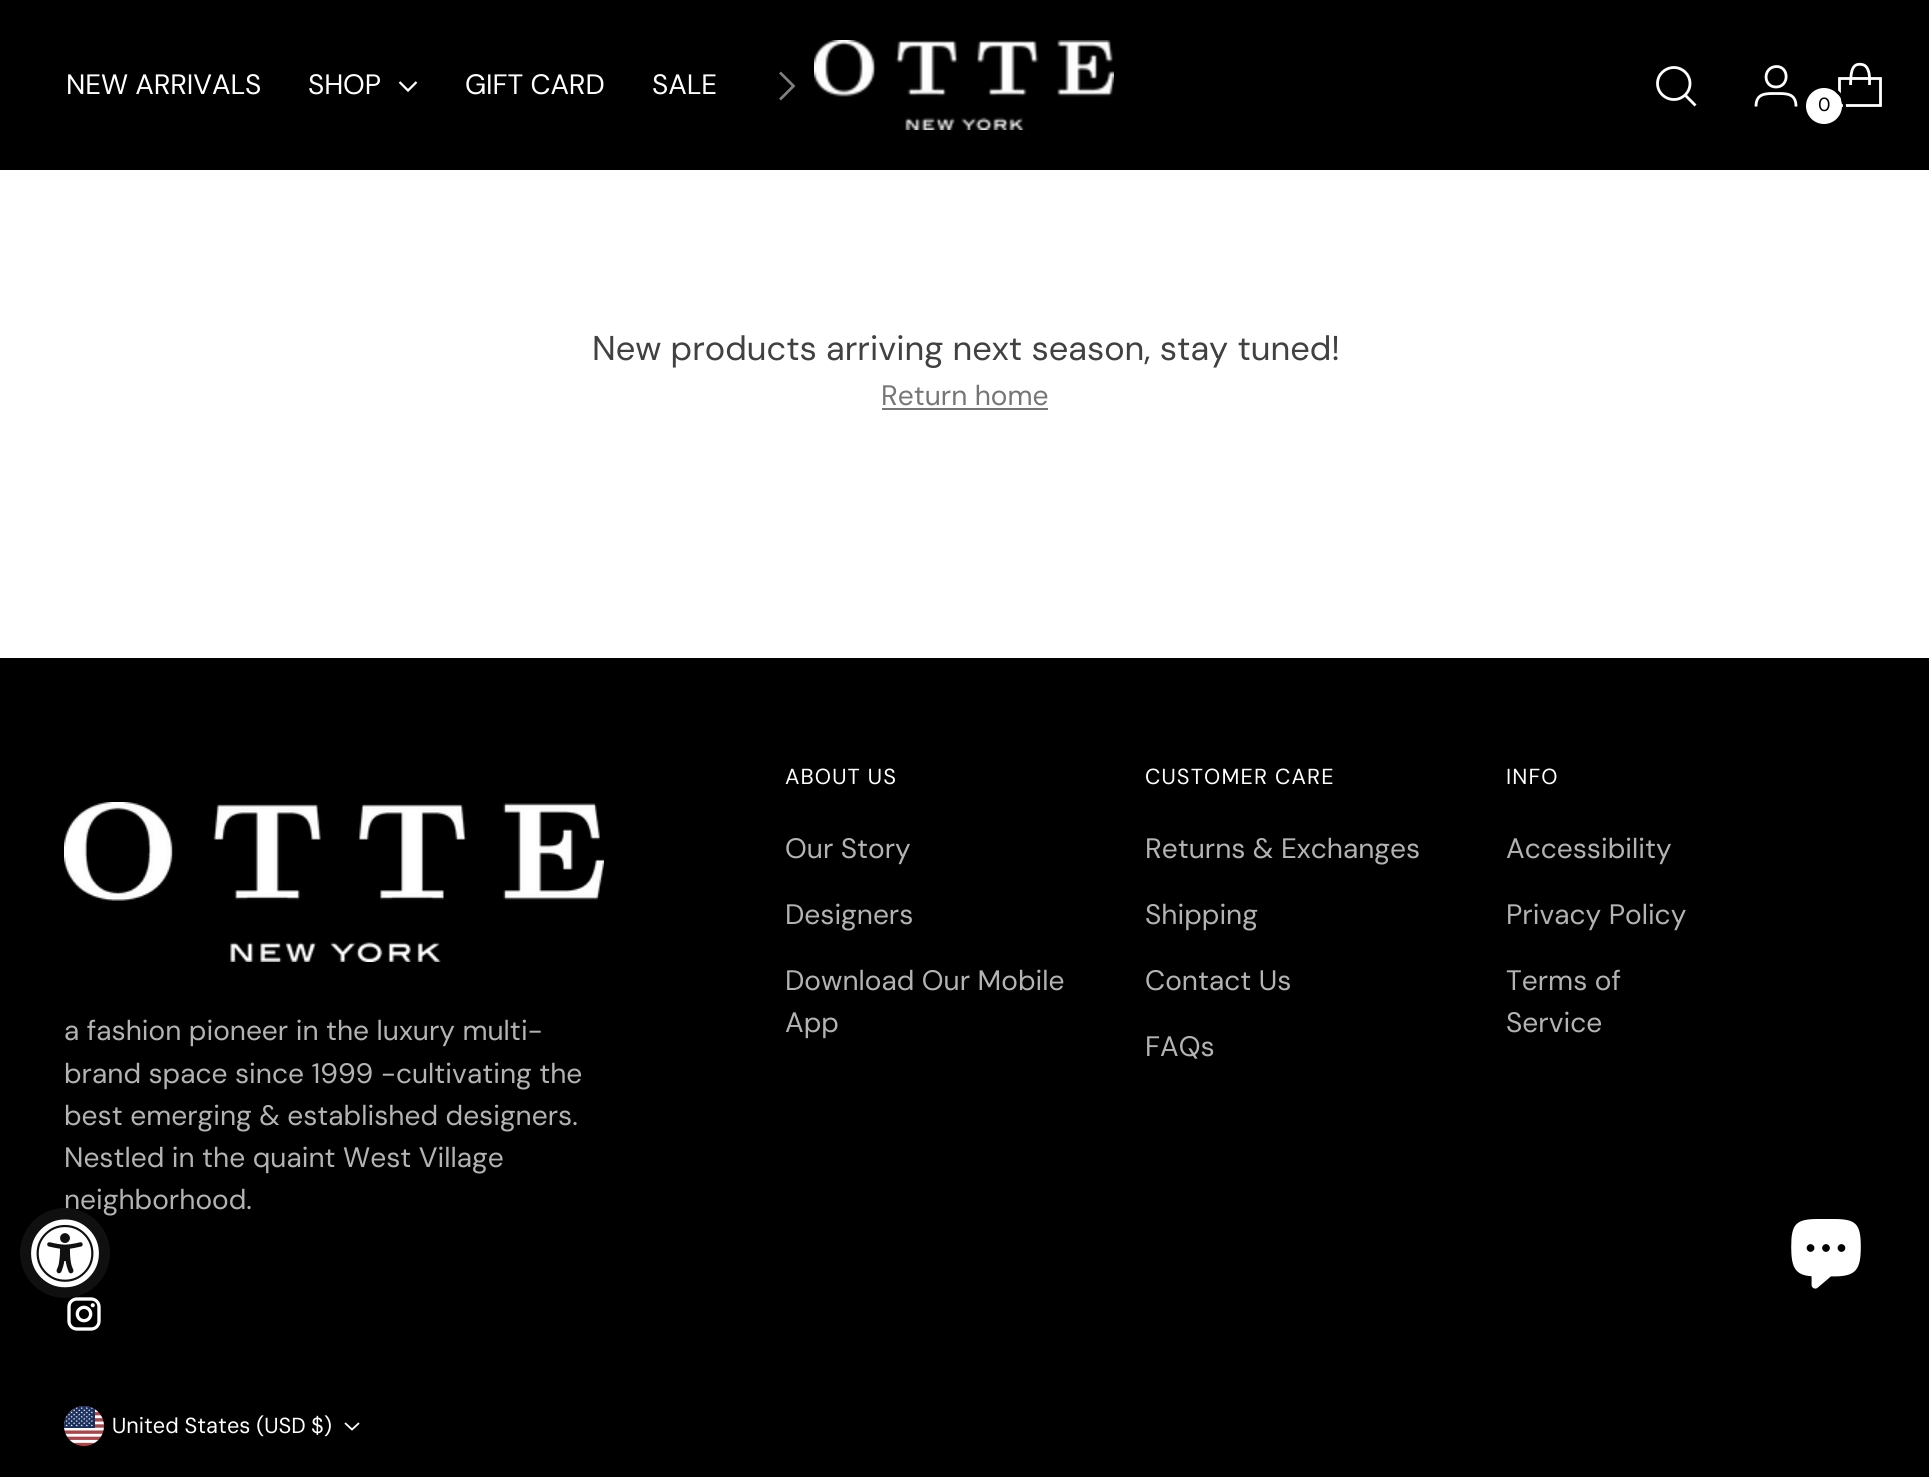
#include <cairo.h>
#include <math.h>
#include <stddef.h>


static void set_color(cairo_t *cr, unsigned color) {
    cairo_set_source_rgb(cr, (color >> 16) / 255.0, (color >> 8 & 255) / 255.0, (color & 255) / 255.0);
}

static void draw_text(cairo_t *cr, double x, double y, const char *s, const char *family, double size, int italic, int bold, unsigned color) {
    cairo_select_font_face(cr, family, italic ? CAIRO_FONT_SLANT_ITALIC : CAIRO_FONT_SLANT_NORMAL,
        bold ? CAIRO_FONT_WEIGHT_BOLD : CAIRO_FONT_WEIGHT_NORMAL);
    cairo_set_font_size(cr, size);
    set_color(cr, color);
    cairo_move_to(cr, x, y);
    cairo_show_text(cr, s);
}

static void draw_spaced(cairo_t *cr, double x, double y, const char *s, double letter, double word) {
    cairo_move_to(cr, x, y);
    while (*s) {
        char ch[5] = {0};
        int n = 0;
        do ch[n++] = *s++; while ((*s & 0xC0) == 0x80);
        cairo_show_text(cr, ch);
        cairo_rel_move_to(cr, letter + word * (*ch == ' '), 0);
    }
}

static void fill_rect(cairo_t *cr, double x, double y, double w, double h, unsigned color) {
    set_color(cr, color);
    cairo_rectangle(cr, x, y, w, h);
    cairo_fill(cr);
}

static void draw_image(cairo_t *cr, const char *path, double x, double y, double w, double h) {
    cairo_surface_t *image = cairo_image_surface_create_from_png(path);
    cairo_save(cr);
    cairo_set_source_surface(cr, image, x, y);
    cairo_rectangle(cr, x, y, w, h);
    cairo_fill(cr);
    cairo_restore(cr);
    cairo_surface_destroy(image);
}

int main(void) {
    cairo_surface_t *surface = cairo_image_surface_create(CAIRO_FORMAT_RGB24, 1929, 1477);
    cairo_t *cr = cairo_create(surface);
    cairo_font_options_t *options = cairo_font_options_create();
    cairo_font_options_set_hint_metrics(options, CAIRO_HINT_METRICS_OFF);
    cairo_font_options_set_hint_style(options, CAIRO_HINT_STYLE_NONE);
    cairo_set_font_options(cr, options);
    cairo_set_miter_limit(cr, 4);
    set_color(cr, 0xFFFFFF);
    cairo_paint(cr);
    fill_rect(cr, 0, 0, 1929, 170, 0x000000);
    cairo_select_font_face(cr, "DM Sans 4", CAIRO_FONT_SLANT_NORMAL, CAIRO_FONT_WEIGHT_NORMAL);
    cairo_set_font_size(cr, 28);
    set_color(cr, 0xFFFFFF);
    draw_spaced(cr, 66, 94, "NEW ARRIVALS", -0.1, 0);
    draw_spaced(cr, 308, 94, "SHOP", -0.1, 0);
    cairo_new_path(cr);
    cairo_move_to(cr, 399.5, 82);
    cairo_line_to(cr, 408, 90.5);
    cairo_line_to(cr, 416.5, 82);
    cairo_set_line_width(cr, 2.3);
    cairo_stroke(cr);
    draw_spaced(cr, 465, 94, "GIFT CARD", -0.1, 0);
    draw_spaced(cr, 652, 94, "SALE", -0.1, 0);
    cairo_new_path(cr);
    cairo_move_to(cr, 780, 99.5);
    cairo_line_to(cr, 793.5, 86);
    cairo_line_to(cr, 780, 72.5);
    set_color(cr, 0x808080);
    cairo_set_line_width(cr, 2.7);
    cairo_stroke(cr);
    draw_image(cr, "assets/img1.png", 814, 40, 300, 90);
    cairo_new_path(cr);
    cairo_move_to(cr, 1674, 99.5);
    cairo_curve_to(cr, 1682.5, 99.5, 1690, 92.5, 1690, 83.5);
    cairo_curve_to(cr, 1690, 74.5, 1682.5, 67.5, 1674, 67.5);
    cairo_curve_to(cr, 1665, 67.5, 1657.5, 74.5, 1657.5, 83.5);
    cairo_curve_to(cr, 1657.5, 92.5, 1665, 99.5, 1674, 99.5);
    cairo_close_path(cr);
    set_color(cr, 0xFFFFFF);
    cairo_set_line_width(cr, 2.8);
    cairo_set_line_cap(cr, CAIRO_LINE_CAP_ROUND);
    cairo_stroke(cr);
    cairo_new_path(cr);
    cairo_move_to(cr, 1685.5, 95.5);
    cairo_line_to(cr, 1695.5, 105.5);
    cairo_set_line_cap(cr, CAIRO_LINE_CAP_BUTT);
    cairo_stroke(cr);
    cairo_new_path(cr);
    cairo_move_to(cr, 1776, 87);
    cairo_curve_to(cr, 1789.5, 87, 1789.5, 66, 1776, 66.5);
    cairo_curve_to(cr, 1762.5, 67.5, 1763, 87, 1776, 87);
    cairo_close_path(cr);
    cairo_move_to(cr, 1756, 106.5);
    cairo_curve_to(cr, 1756, 93, 1766, 93.5, 1776, 93.5);
    cairo_curve_to(cr, 1786, 93.5, 1796, 93, 1796, 106.5);
    cairo_stroke(cr);
    cairo_new_path(cr);
    cairo_move_to(cr, 1869.5, 85);
    cairo_curve_to(cr, 1869.5, 80, 1870, 74.5, 1868, 70);
    cairo_curve_to(cr, 1867, 67, 1865, 65, 1862, 64.5);
    cairo_curve_to(cr, 1850, 62, 1851, 77, 1850.5, 85);
    cairo_set_line_join(cr, CAIRO_LINE_JOIN_BEVEL);
    cairo_stroke(cr);
    cairo_new_path(cr);
    cairo_move_to(cr, 1880.5, 105.5);
    cairo_line_to(cr, 1880.5, 78.5);
    cairo_line_to(cr, 1839.5, 78.5);
    cairo_line_to(cr, 1839.5, 105.5);
    cairo_close_path(cr);
    cairo_set_line_join(cr, CAIRO_LINE_JOIN_MITER);
    cairo_stroke(cr);
    cairo_arc(cr, 1825, 107, 19.5, 0, 2 * M_PI);
    set_color(cr, 0x000000);
    cairo_set_line_width(cr, 3);
    cairo_stroke(cr);
    set_color(cr, 0xFFFFFF);
    cairo_arc(cr, 1824, 106, 18, 0, 2 * M_PI);
    cairo_fill(cr);
    draw_text(cr, 1818, 111, "0", "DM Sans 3", 19, 0, 0, 0x000000);
    draw_text(cr, 592, 360, "New products arriving next season, stay tuned!", "DM Sans", 34.4, 0, 0, 0x414141);
    draw_text(cr, 881, 405, "Return home", "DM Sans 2", 28.1, 0, 0, 0x767676);
    fill_rect(cr, 882, 408, 166, 2, 0x767676);
    fill_rect(cr, 0, 658, 1929, 819, 0x000000);
    cairo_select_font_face(cr, "DM Sans 3", CAIRO_FONT_SLANT_NORMAL, CAIRO_FONT_WEIGHT_NORMAL);
    cairo_set_font_size(cr, 21.75);
    set_color(cr, 0xFFFFFF);
    draw_spaced(cr, 785, 784, "ABOUT US", 1.1, 0);
    draw_text(cr, 785, 858, "Our Story", "DM Sans 2", 28.1, 0, 0, 0xB3B3B3);
    draw_text(cr, 785, 924, "Designers", "DM Sans 2", 28.1, 0, 0, 0xB3B3B3);
    draw_text(cr, 785, 990, "Download Our Mobile", "DM Sans 2", 28.1, 0, 0, 0xB3B3B3);
    draw_text(cr, 785, 1032, "App", "DM Sans 2", 28.1, 0, 0, 0xB3B3B3);
    cairo_select_font_face(cr, "DM Sans 3", CAIRO_FONT_SLANT_NORMAL, CAIRO_FONT_WEIGHT_NORMAL);
    cairo_set_font_size(cr, 21.75);
    set_color(cr, 0xFFFFFF);
    draw_spaced(cr, 1145, 784, "CUSTOMER CARE", 1.1, 0);
    draw_text(cr, 1145, 858, "Returns & Exchanges", "DM Sans 2", 28.1, 0, 0, 0xB3B3B3);
    draw_text(cr, 1145, 924, "Shipping", "DM Sans 2", 28.1, 0, 0, 0xB3B3B3);
    draw_text(cr, 1145, 990, "Contact Us", "DM Sans 2", 28.1, 0, 0, 0xB3B3B3);
    draw_text(cr, 1145, 1056, "FAQs", "DM Sans 2", 28.1, 0, 0, 0xB3B3B3);
    cairo_select_font_face(cr, "DM Sans 3", CAIRO_FONT_SLANT_NORMAL, CAIRO_FONT_WEIGHT_NORMAL);
    cairo_set_font_size(cr, 21.75);
    set_color(cr, 0xFFFFFF);
    draw_spaced(cr, 1506, 784, "INFO", 1.1, 0);
    draw_text(cr, 1506, 858, "Accessibility", "DM Sans 2", 28.1, 0, 0, 0xB3B3B3);
    draw_text(cr, 1506, 924, "Privacy Policy", "DM Sans 2", 28.1, 0, 0, 0xB3B3B3);
    draw_text(cr, 1506, 990, "Terms of", "DM Sans 2", 28.1, 0, 0, 0xB3B3B3);
    draw_text(cr, 1506, 1032, "Service", "DM Sans 2", 28.1, 0, 0, 0xB3B3B3);
    draw_image(cr, "assets/img2.png", 64, 802, 540, 160);
    draw_text(cr, 64, 1040, "a fashion pioneer in the luxury multi-", "DM Sans 2", 28.1, 0, 0, 0xB3B3B3);
    draw_text(cr, 64, 1083, "brand space since 1999 -cultivating the", "DM Sans 2", 28.1, 0, 0, 0xB3B3B3);
    draw_text(cr, 64, 1125, "best emerging & established designers.", "DM Sans 2", 28.1, 0, 0, 0xB3B3B3);
    draw_text(cr, 64, 1167, "Nestled in the quaint West Village", "DM Sans 2", 28.1, 0, 0, 0xB3B3B3);
    draw_text(cr, 64, 1209, "neighborhood.", "DM Sans 2", 28.1, 0, 0, 0xB3B3B3);
    draw_image(cr, "assets/img3.png", 67, 1297, 34, 34);
    draw_image(cr, "assets/img4.png", 64, 1406, 40, 40);
    draw_text(cr, 112, 1433, "United States (USD", "DM Sans 3", 21.75, 0, 0, 0xFFFFFF);
    draw_text(cr, 311, 1433, "$)", "DM Sans 3", 21.75, 0, 0, 0xFFFFFF);
    cairo_new_path(cr);
    cairo_move_to(cr, 345, 1423);
    cairo_line_to(cr, 352, 1429.5);
    cairo_line_to(cr, 359, 1423);
    cairo_set_line_width(cr, 1.8);
    cairo_stroke(cr);
    set_color(cr, 0x101010);
    cairo_arc(cr, 65, 1253, 45, 0, 2 * M_PI);
    cairo_fill(cr);
    draw_image(cr, "assets/img5.png", 31, 1219, 68, 69);
    draw_image(cr, "assets/img6.png", 1791, 1219, 70, 70);
    cairo_surface_write_to_png(surface, "output.png");
    cairo_font_options_destroy(options);
    cairo_destroy(cr);
    cairo_surface_destroy(surface);
    return 0;
}
